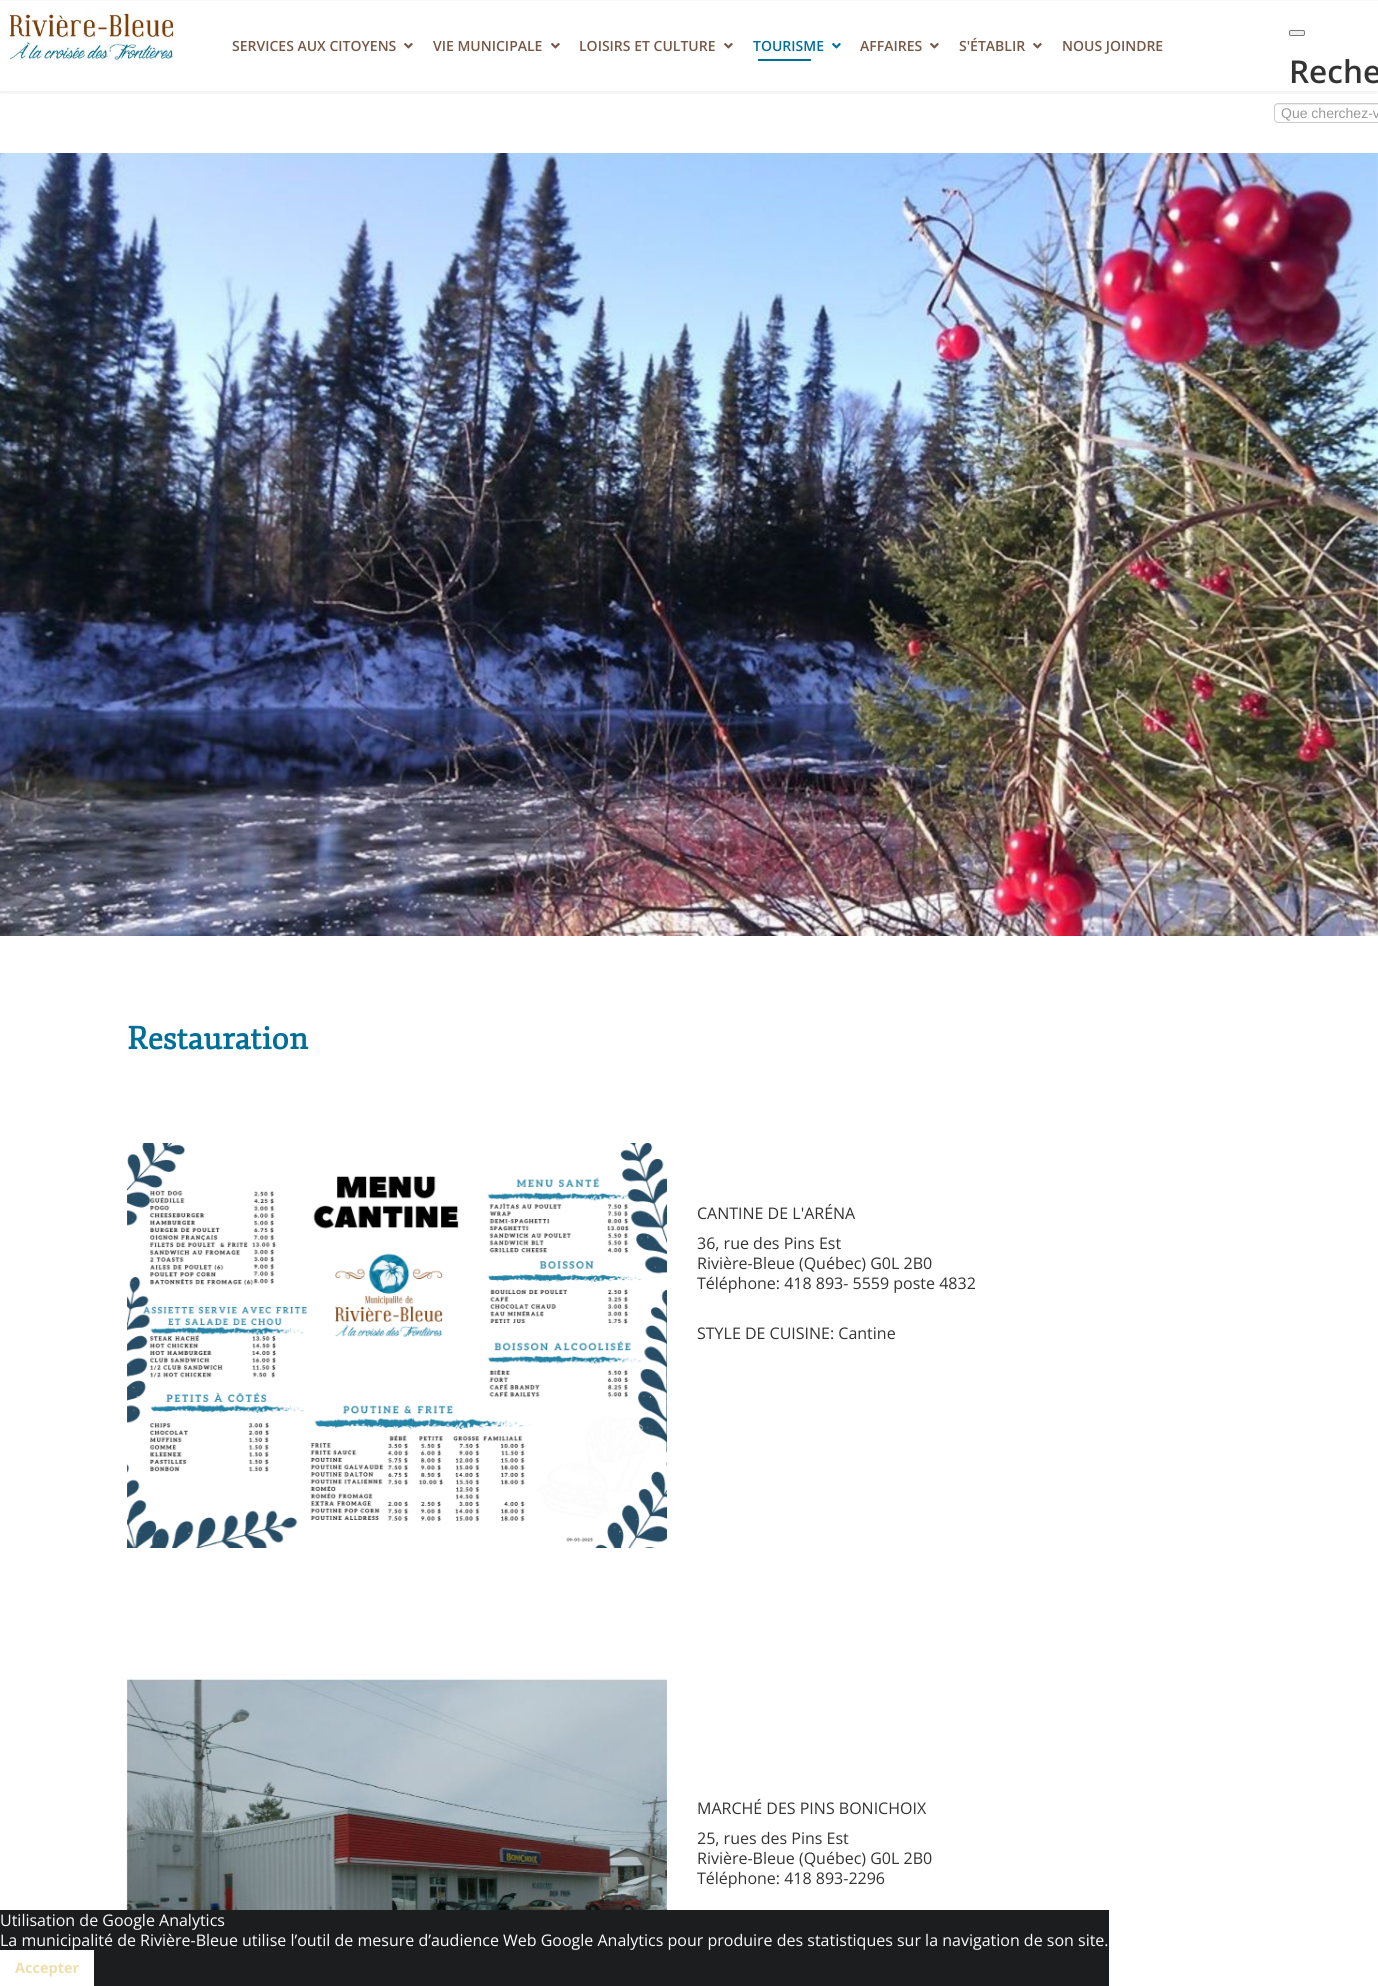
#include <cairo.h>
#include <math.h>
#include <stddef.h>


static void set_color(cairo_t *cr, unsigned color) {
    cairo_set_source_rgb(cr, (color >> 16) / 255.0, (color >> 8 & 255) / 255.0, (color & 255) / 255.0);
}

static void draw_text(cairo_t *cr, double x, double y, const char *s, const char *family, double size, int italic, int bold, unsigned color) {
    cairo_select_font_face(cr, family, italic ? CAIRO_FONT_SLANT_ITALIC : CAIRO_FONT_SLANT_NORMAL,
        bold ? CAIRO_FONT_WEIGHT_BOLD : CAIRO_FONT_WEIGHT_NORMAL);
    cairo_set_font_size(cr, size);
    set_color(cr, color);
    cairo_move_to(cr, x, y);
    cairo_show_text(cr, s);
}

static void fill_rect(cairo_t *cr, double x, double y, double w, double h, unsigned color) {
    set_color(cr, color);
    cairo_rectangle(cr, x, y, w, h);
    cairo_fill(cr);
}

static void rounded_rect(cairo_t *cr, double x, double y, double w, double h, double r) {
    cairo_new_sub_path(cr);
    cairo_arc(cr, x + w - r, y + h - r, r, 0, M_PI / 2);
    cairo_arc(cr, x + r, y + h - r, r, M_PI / 2, M_PI);
    cairo_arc(cr, x + r, y + r, r, M_PI, 1.5 * M_PI);
    cairo_arc(cr, x + w - r, y + r, r, 1.5 * M_PI, 2 * M_PI);
    cairo_close_path(cr);
}

static void draw_shadow(cairo_t *cr, double x, double y, double w, double h, double r, double blur, double alpha) {
    cairo_push_group_with_content(cr, CAIRO_CONTENT_ALPHA);
    cairo_set_operator(cr, CAIRO_OPERATOR_SOURCE);
    for (int i = 15; i >= -15 && fmin(w, h) + blur * i / 3 > 0; i -= 2) {
        double e = blur * i / 6;
        cairo_set_source_rgba(cr, 0, 0, 0, alpha * erfc((i - 1) / 8.5) / 2);
        rounded_rect(cr, x - e, y - e, w + 2 * e, h + 2 * e, fmax(0, fmin(r + e + blur * .6, fmin(w, h) / 2 + e)));
        cairo_fill(cr);
    }
    cairo_pattern_t *soft = cairo_pop_group(cr);
    cairo_mask(cr, soft);
    cairo_pattern_destroy(soft);
}

static void draw_image(cairo_t *cr, const char *path, double x, double y, double w, double h) {
    cairo_surface_t *image = cairo_image_surface_create_from_png(path);
    cairo_save(cr);
    cairo_set_source_surface(cr, image, x, y);
    cairo_rectangle(cr, x, y, w, h);
    cairo_fill(cr);
    cairo_restore(cr);
    cairo_surface_destroy(image);
}

int main(void) {
    cairo_surface_t *surface = cairo_image_surface_create(CAIRO_FORMAT_RGB24, 1378, 1986);
    cairo_t *cr = cairo_create(surface);
    cairo_font_options_t *options = cairo_font_options_create();
    cairo_font_options_set_hint_metrics(options, CAIRO_HINT_METRICS_OFF);
    cairo_font_options_set_hint_style(options, CAIRO_HINT_STYLE_NONE);
    cairo_set_font_options(cr, options);
    cairo_set_miter_limit(cr, 4);
    set_color(cr, 0xFFFFFF);
    cairo_paint(cr);
    fill_rect(cr, 0, 0, 1378, 1, 0xFAF9F5);
    cairo_save(cr);
    cairo_rectangle(cr, 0, 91, 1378, 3);
    cairo_clip(cr);
    set_color(cr, 0x000000);
    draw_shadow(cr, 0, 4, 1378, 90, 0, 1.5, 0.05);
    cairo_restore(cr);
    draw_image(cr, "assets/img1.png", 8, 11, 166, 51);
    draw_text(cr, 232, 51, "SERVICES AUX CITOYENS", "Open Sans SemiBold", 14, 0, 0, 0x775846);
    draw_image(cr, "assets/img2.png", 404, 43, 9, 6);
    draw_text(cr, 433, 51, "VIE MUNICIPALE", "Open Sans SemiBold", 14, 0, 0, 0x775846);
    draw_image(cr, "assets/img2.png", 551, 43, 9, 6);
    draw_text(cr, 579, 51, "LOISIRS ET CULTURE", "Open Sans SemiBold", 14, 0, 0, 0x775846);
    draw_image(cr, "assets/img2.png", 724, 43, 9, 6);
    draw_text(cr, 753, 51, "TOURISME", "Open Sans SemiBold", 14, 0, 0, 0x006F97);
    draw_image(cr, "assets/img3.png", 832, 43, 9, 6);
    fill_rect(cr, 758, 59, 53, 2, 0x006F97);
    draw_text(cr, 860, 51, "AFFAIRES", "Open Sans SemiBold", 14, 0, 0, 0x775846);
    draw_image(cr, "assets/img2.png", 930, 43, 9, 6);
    draw_text(cr, 959, 51, "S'ÉTABLIR", "Open Sans SemiBold", 14, 0, 0, 0x775846);
    draw_image(cr, "assets/img2.png", 1033, 43, 9, 6);
    draw_text(cr, 1062, 51, "NOUS JOINDRE", "Open Sans SemiBold", 14, 0, 0, 0x775846);
    set_color(cr, 0xEFEFEF);
    rounded_rect(cr, 1289.5, 30.5, 15, 5, 1.5);
    cairo_fill_preserve(cr);
    set_color(cr, 0x767676);
    cairo_set_line_width(cr, 1);
    cairo_stroke(cr);
    draw_text(cr, 1289, 83, "Reche", "Open Sans SemiBold", 31.5, 0, 0, 0x333333);
    set_color(cr, 0xECECEC);
    cairo_new_path(cr);
    cairo_move_to(cr, 1278, 105);
    cairo_line_to(cr, 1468, 105);
    cairo_line_to(cr, 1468, 104);
    cairo_line_to(cr, 1278, 104);
    cairo_curve_to(cr, 1275, 104, 1275, 106, 1275, 108);
    cairo_curve_to(cr, 1275, 107, 1276, 105, 1278, 105);
    cairo_close_path(cr);
    cairo_fill(cr);
    cairo_new_path(cr);
    cairo_move_to(cr, 1278, 103.5);
    cairo_line_to(cr, 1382.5, 103.5);
    cairo_line_to(cr, 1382.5, 122.5);
    cairo_line_to(cr, 1278, 122.5);
    cairo_curve_to(cr, 1276, 122.5, 1274.5, 121, 1274.5, 119);
    cairo_line_to(cr, 1274.5, 107);
    cairo_curve_to(cr, 1274.5, 105, 1276, 103.5, 1278, 103.5);
    cairo_close_path(cr);
    set_color(cr, 0xCCCCCC);
    cairo_stroke(cr);
    draw_text(cr, 1281, 118, "Que cherchez-v", "Liberation Sans", 14, 0, 0, 0x999999);
    draw_image(cr, "assets/img4.png", 0, 153, 1378, 783);
    draw_text(cr, 127, 1049, "Restauration", "Fjord", 31.5, 0, 1, 0x006F97);
    draw_image(cr, "assets/img5.png", 127, 1143, 540, 405);
    draw_text(cr, 697, 1219, "CANTINE DE L'ARÉNA", "Open Sans", 16, 0, 0, 0x333333);
    draw_text(cr, 697, 1249, "36, rue des Pins Est", "Open Sans", 16, 0, 0, 0x333333);
    draw_text(cr, 697, 1269, "Rivière-Bleue (Québec) G0L 2B0", "Open Sans", 16, 0, 0, 0x333333);
    draw_text(cr, 697, 1289, "Téléphone: 418 893- 5559 poste 4832", "Open Sans", 16, 0, 0, 0x333333);
    draw_text(cr, 697, 1339, "STYLE DE CUISINE: Cantine", "Open Sans", 16, 0, 0, 0x333333);
    draw_image(cr, "assets/img6.png", 126, 1678, 541, 232);
    draw_text(cr, 697, 1814, "MARCHÉ DES PINS BONICHOIX", "Open Sans", 16, 0, 0, 0x333333);
    draw_text(cr, 697, 1844, "25, rues des Pins Est", "Open Sans", 16, 0, 0, 0x333333);
    draw_text(cr, 697, 1864, "Rivière-Bleue (Québec) G0L 2B0", "Open Sans", 16, 0, 0, 0x333333);
    draw_text(cr, 697, 1884, "Téléphone: 418 893-2296", "Open Sans", 16, 0, 0, 0x333333);
    fill_rect(cr, 0, 1910, 1109, 76, 0x1C1D1F);
    draw_text(cr, 0, 1926, "Utilisation de Google Analytics", "Open Sans", 16, 0, 0, 0xFFFFFF);
    draw_text(cr, 0, 1946, "La municipalité de Rivière-Bleue utilise l’outil de mesure d’audience Web Google Analytics pour produire des statistiques sur la navigation de son site.", "Open Sans", 16, 0, 0, 0xFFFFFF);
    fill_rect(cr, 0, 1950, 94, 36, 0xFFFFFF);
    draw_text(cr, 15, 1973, "Accepter", "Open Sans", 14.5, 0, 1, 0xF0DEAD);
    cairo_surface_write_to_png(surface, "output.png");
    cairo_font_options_destroy(options);
    cairo_destroy(cr);
    cairo_surface_destroy(surface);
    return 0;
}
